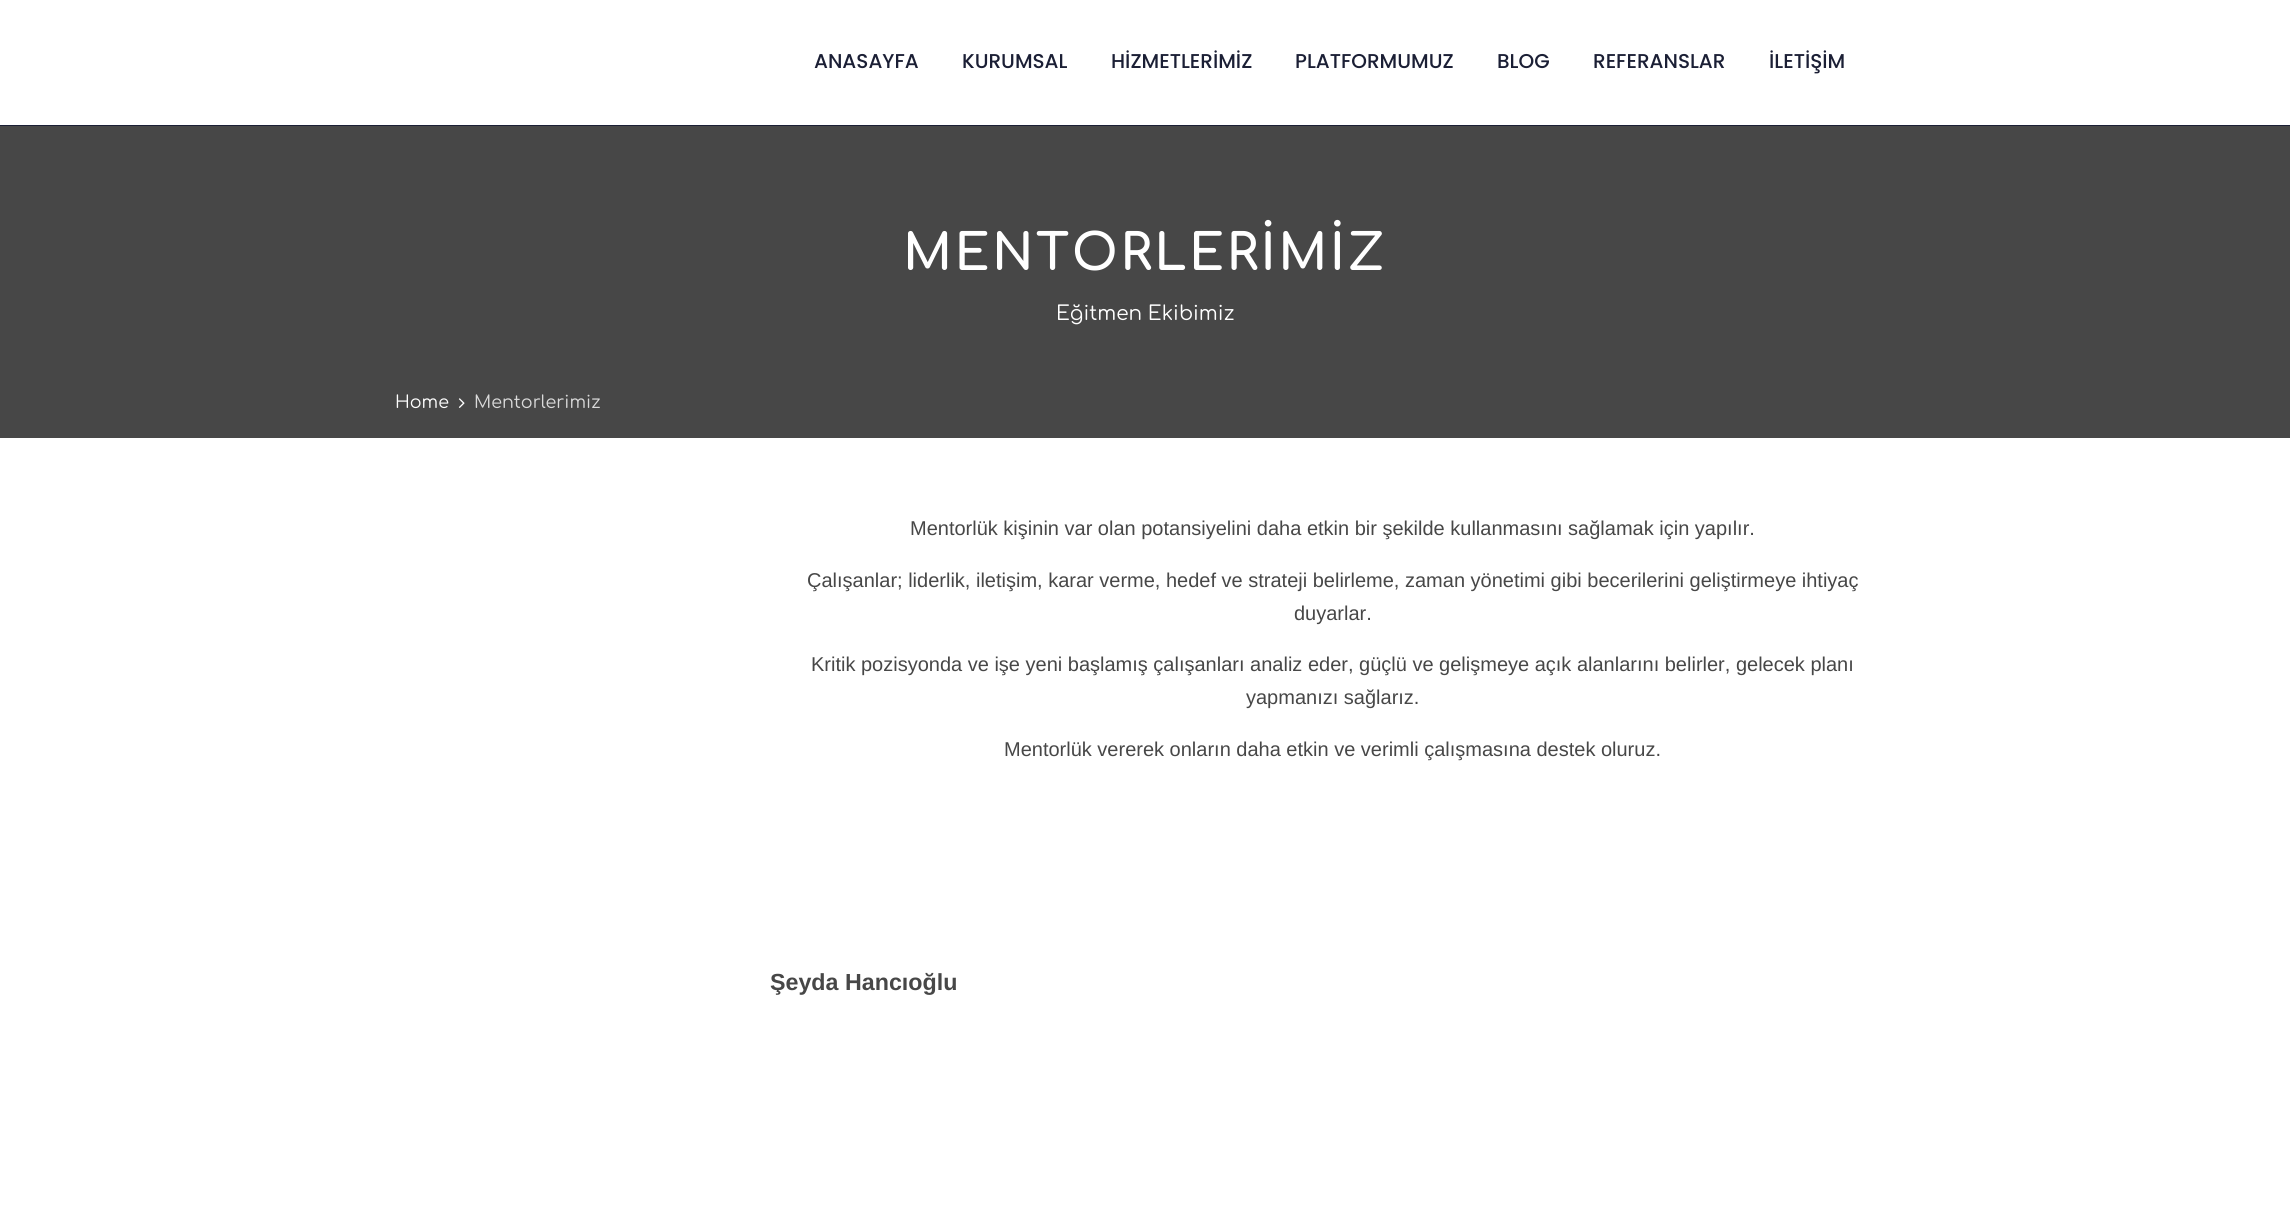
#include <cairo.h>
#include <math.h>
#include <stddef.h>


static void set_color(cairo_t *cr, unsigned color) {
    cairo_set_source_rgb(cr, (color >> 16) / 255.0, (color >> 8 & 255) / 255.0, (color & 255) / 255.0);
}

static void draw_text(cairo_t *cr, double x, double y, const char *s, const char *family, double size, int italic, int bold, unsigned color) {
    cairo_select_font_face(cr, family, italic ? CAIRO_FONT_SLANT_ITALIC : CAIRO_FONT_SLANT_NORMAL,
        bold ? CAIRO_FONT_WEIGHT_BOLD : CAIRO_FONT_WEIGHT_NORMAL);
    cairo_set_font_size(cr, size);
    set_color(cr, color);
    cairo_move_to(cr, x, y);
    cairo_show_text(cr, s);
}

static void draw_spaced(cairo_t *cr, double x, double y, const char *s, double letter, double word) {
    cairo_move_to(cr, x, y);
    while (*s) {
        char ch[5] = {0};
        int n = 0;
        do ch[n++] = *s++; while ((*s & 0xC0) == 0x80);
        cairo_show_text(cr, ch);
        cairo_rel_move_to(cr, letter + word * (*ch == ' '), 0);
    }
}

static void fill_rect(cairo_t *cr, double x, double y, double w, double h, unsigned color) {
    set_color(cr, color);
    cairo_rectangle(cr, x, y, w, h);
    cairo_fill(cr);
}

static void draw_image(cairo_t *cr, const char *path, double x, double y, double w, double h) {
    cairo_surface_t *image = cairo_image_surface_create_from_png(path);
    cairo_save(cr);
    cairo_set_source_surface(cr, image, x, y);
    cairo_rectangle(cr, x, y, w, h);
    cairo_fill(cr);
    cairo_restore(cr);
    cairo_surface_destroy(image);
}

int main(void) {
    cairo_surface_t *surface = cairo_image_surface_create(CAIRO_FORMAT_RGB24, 2290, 1215);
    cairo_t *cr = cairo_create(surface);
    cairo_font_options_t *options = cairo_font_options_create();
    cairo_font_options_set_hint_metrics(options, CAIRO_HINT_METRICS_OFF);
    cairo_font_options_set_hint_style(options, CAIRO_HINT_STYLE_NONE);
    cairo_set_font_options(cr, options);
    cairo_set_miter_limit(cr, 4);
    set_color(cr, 0xFFFFFF);
    cairo_paint(cr);
    fill_rect(cr, 0, 125, 2290, 1, 0x1B1F35);
    draw_text(cr, 814, 68, "ANASAYFA", "Poppins Medium", 20, 0, 0, 0x1B1F35);
    draw_text(cr, 962, 68, "KURUMSAL", "Poppins Medium", 20, 0, 0, 0x1B1F35);
    draw_text(cr, 1111, 68, "HİZMETLERİMİZ", "Poppins Medium", 20, 0, 0, 0x1B1F35);
    draw_text(cr, 1295, 68, "PLATFORMUMUZ", "Poppins Medium", 20, 0, 0, 0x1B1F35);
    draw_text(cr, 1497, 68, "BLOG", "Poppins Medium", 20, 0, 0, 0x1B1F35);
    draw_text(cr, 1593, 68, "REFERANSLAR", "Poppins Medium", 20, 0, 0, 0x1B1F35);
    draw_text(cr, 1769, 68, "İLETİŞİM", "Poppins Medium", 20, 0, 0, 0x1B1F35);
    fill_rect(cr, 0, 126, 2290, 312, 0x474747);
    cairo_select_font_face(cr, "Comfortaa", CAIRO_FONT_SLANT_NORMAL, CAIRO_FONT_WEIGHT_BOLD);
    cairo_set_font_size(cr, 50);
    set_color(cr, 0xFFFFFF);
    draw_spaced(cr, 903, 270, "MENTORLERİMİZ", 2.5, 0);
    draw_text(cr, 1056, 320, "Eğitmen Ekibimiz", "Comfortaa", 20, 0, 0, 0xFFFFFF);
    draw_text(cr, 395, 408, "Home", "Comfortaa", 17.5, 0, 0, 0xFFFFFF);
    draw_image(cr, "assets/img1.png", 458, 398, 7, 10);
    draw_text(cr, 474, 408, "Mentorlerimiz", "Comfortaa", 17.5, 0, 0, 0xDADADA);
    draw_text(cr, 910, 535, "Mentorlük kişinin var olan potansiyelini daha etkin bir şekilde kullanmasını sağlamak için yapılır.", "Liberation Sans", 20, 0, 0, 0x474747);
    draw_text(cr, 807, 587, "Çalışanlar; liderlik, iletişim, karar verme, hedef ve strateji belirleme, zaman yönetimi gibi becerilerini geliştirmeye ihtiyaç", "Liberation Sans", 20, 0, 0, 0x474747);
    draw_text(cr, 1294, 620, "duyarlar.", "Liberation Sans", 20, 0, 0, 0x474747);
    draw_text(cr, 811, 671, "Kritik pozisyonda ve işe yeni başlamış çalışanları analiz eder, güçlü ve gelişmeye açık alanlarını belirler, gelecek planı", "Liberation Sans", 20, 0, 0, 0x474747);
    draw_text(cr, 1246, 704, "yapmanızı sağlarız.", "Liberation Sans", 20, 0, 0, 0x474747);
    draw_text(cr, 1004, 756, "Mentorlük vererek onların daha etkin ve verimli çalışmasına destek oluruz.", "Liberation Sans", 20, 0, 0, 0x474747);
    draw_text(cr, 770, 990, "Şeyda Hancıoğlu", "Liberation Sans", 23.25, 0, 1, 0x474747);
    cairo_surface_write_to_png(surface, "output.png");
    cairo_font_options_destroy(options);
    cairo_destroy(cr);
    cairo_surface_destroy(surface);
    return 0;
}
